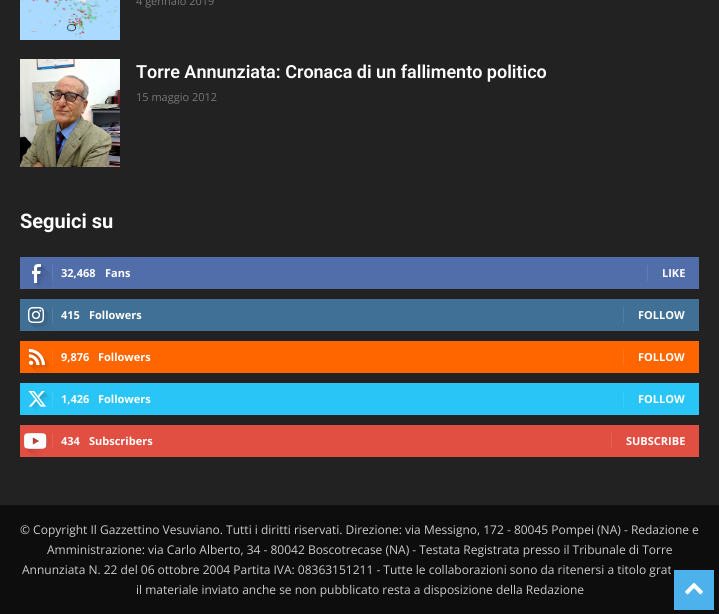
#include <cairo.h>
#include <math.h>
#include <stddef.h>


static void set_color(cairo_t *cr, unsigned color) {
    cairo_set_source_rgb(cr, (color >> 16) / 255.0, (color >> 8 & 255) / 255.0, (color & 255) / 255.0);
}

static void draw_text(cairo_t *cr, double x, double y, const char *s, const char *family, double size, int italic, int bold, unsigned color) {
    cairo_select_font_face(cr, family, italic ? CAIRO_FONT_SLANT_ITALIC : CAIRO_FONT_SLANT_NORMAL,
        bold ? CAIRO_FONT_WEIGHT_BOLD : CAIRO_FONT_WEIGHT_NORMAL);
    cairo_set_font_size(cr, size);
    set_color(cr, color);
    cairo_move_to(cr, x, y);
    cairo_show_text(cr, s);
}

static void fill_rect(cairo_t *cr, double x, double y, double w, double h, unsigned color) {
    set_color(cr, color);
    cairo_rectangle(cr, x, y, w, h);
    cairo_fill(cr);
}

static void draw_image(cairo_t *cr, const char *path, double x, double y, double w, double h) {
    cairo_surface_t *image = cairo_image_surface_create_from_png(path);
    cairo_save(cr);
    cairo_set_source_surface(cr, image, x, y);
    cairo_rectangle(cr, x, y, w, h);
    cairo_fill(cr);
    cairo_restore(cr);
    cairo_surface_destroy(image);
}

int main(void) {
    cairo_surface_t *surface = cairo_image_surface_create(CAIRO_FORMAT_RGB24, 719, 614);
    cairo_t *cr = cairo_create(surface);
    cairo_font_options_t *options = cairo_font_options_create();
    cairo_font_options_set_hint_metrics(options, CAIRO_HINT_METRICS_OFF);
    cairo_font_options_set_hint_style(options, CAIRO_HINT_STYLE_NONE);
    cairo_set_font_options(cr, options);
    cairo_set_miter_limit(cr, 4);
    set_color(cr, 0x0D0D0D);
    cairo_paint(cr);
    fill_rect(cr, 0, 0, 719, 505, 0x222222);
    draw_image(cr, "assets/img1.png", 20, 0, 100, 40);
    draw_text(cr, 136, 5, "4 gennaio 2019", "Open Sans", 11, 0, 0, 0x767676);
    draw_image(cr, "assets/img2.png", 20, 59, 100, 108);
    draw_text(cr, 136, 78, "Torre Annunziata: Cronaca di un fallimento politico", "Roboto SemiBold", 18, 0, 0, 0xFFFFFF);
    draw_text(cr, 136, 101, "15 maggio 2012", "Open Sans", 11, 0, 0, 0x767676);
    draw_text(cr, 20, 228, "Seguici su", "Roboto", 20, 0, 1, 0xFFFFFF);
    fill_rect(cr, 20, 257, 679, 32, 0x516EAB);
    draw_image(cr, "assets/img3.png", 32, 264, 20, 25);
    fill_rect(cr, 52, 265, 1, 16, 0x627DB3);
    draw_text(cr, 61, 277, "32,468", "Open Sans", 11, 0, 1, 0xFFFFFF);
    draw_text(cr, 105, 277, "Fans", "Open Sans", 11, 0, 1, 0xFFFFFF);
    fill_rect(cr, 647, 265, 1, 16, 0x627DB3);
    draw_text(cr, 662, 277, "LIKE", "Open Sans", 11, 0, 1, 0xFFFFFF);
    fill_rect(cr, 20, 299, 679, 32, 0x417096);
    draw_image(cr, "assets/img4.png", 28, 307, 23, 23);
    fill_rect(cr, 52, 307, 1, 16, 0x547EA1);
    draw_text(cr, 61, 319, "415", "Open Sans", 11, 0, 1, 0xFFFFFF);
    draw_text(cr, 89, 319, "Followers", "Open Sans", 11, 0, 1, 0xFFFFFF);
    fill_rect(cr, 623, 307, 1, 16, 0x547EA1);
    draw_text(cr, 638, 319, "FOLLOW", "Open Sans", 11, 0, 1, 0xFFFFFF);
    fill_rect(cr, 20, 341, 679, 32, 0xFF6600);
    draw_image(cr, "assets/img5.png", 28, 349, 24, 24);
    fill_rect(cr, 52, 349, 1, 16, 0xFF751A);
    draw_text(cr, 61, 361, "9,876", "Open Sans", 11, 0, 1, 0xFFFFFF);
    draw_text(cr, 98, 361, "Followers", "Open Sans", 11, 0, 1, 0xFFFFFF);
    fill_rect(cr, 623, 349, 1, 16, 0xFF751A);
    draw_text(cr, 638, 361, "FOLLOW", "Open Sans", 11, 0, 1, 0xFFFFFF);
    fill_rect(cr, 20, 383, 679, 32, 0x29C5F6);
    draw_image(cr, "assets/img6.png", 28, 391, 23, 21);
    fill_rect(cr, 52, 391, 1, 16, 0x3ECBF7);
    draw_text(cr, 61, 403, "1,426", "Open Sans", 11, 0, 1, 0xFFFFFF);
    draw_text(cr, 98, 403, "Followers", "Open Sans", 11, 0, 1, 0xFFFFFF);
    fill_rect(cr, 623, 391, 1, 16, 0x3ECBF7);
    draw_text(cr, 638, 403, "FOLLOW", "Open Sans", 11, 0, 1, 0xFFFFFF);
    fill_rect(cr, 20, 425, 679, 32, 0xE14E42);
    draw_image(cr, "assets/img7.png", 24, 433, 27, 24);
    fill_rect(cr, 52, 433, 1, 16, 0xE46055);
    draw_text(cr, 61, 445, "434", "Open Sans", 11, 0, 1, 0xFFFFFF);
    draw_text(cr, 89, 445, "Subscribers", "Open Sans", 11, 0, 1, 0xFFFFFF);
    fill_rect(cr, 611, 433, 1, 16, 0xE46055);
    draw_text(cr, 626, 445, "SUBSCRIBE", "Open Sans", 11, 0, 1, 0xFFFFFF);
    draw_text(cr, 20, 534, "© Copyright Il Gazzettino Vesuviano. Tutti i diritti riservati. Direzione: via Messigno, 172 - 80045 Pompei (NA) - Redazione e", "Open Sans", 12, 0, 0, 0xCCCCCC);
    draw_text(cr, 47, 554, "Amministrazione: via Carlo Alberto, 34 - 80042 Boscotrecase (NA) - Testata Registrata presso il Tribunale di Torre", "Open Sans", 12, 0, 0, 0xCCCCCC);
    draw_text(cr, 22, 574, "Annunziata N. 22 del 06 ottobre 2004 Partita IVA: 08363151211 - Tutte le collaborazioni sono da ritenersi a titolo grat", "Open Sans", 12, 0, 0, 0xCCCCCC);
    draw_text(cr, 136, 594, "il materiale inviato anche se non pubblicato resta a disposizione della Redazione", "Open Sans", 12, 0, 0, 0xCCCCCC);
    fill_rect(cr, 674, 570, 40, 40, 0x4DB2EC);
    draw_image(cr, "assets/img8.png", 685, 582, 18, 13);
    cairo_surface_write_to_png(surface, "output.png");
    cairo_font_options_destroy(options);
    cairo_destroy(cr);
    cairo_surface_destroy(surface);
    return 0;
}
